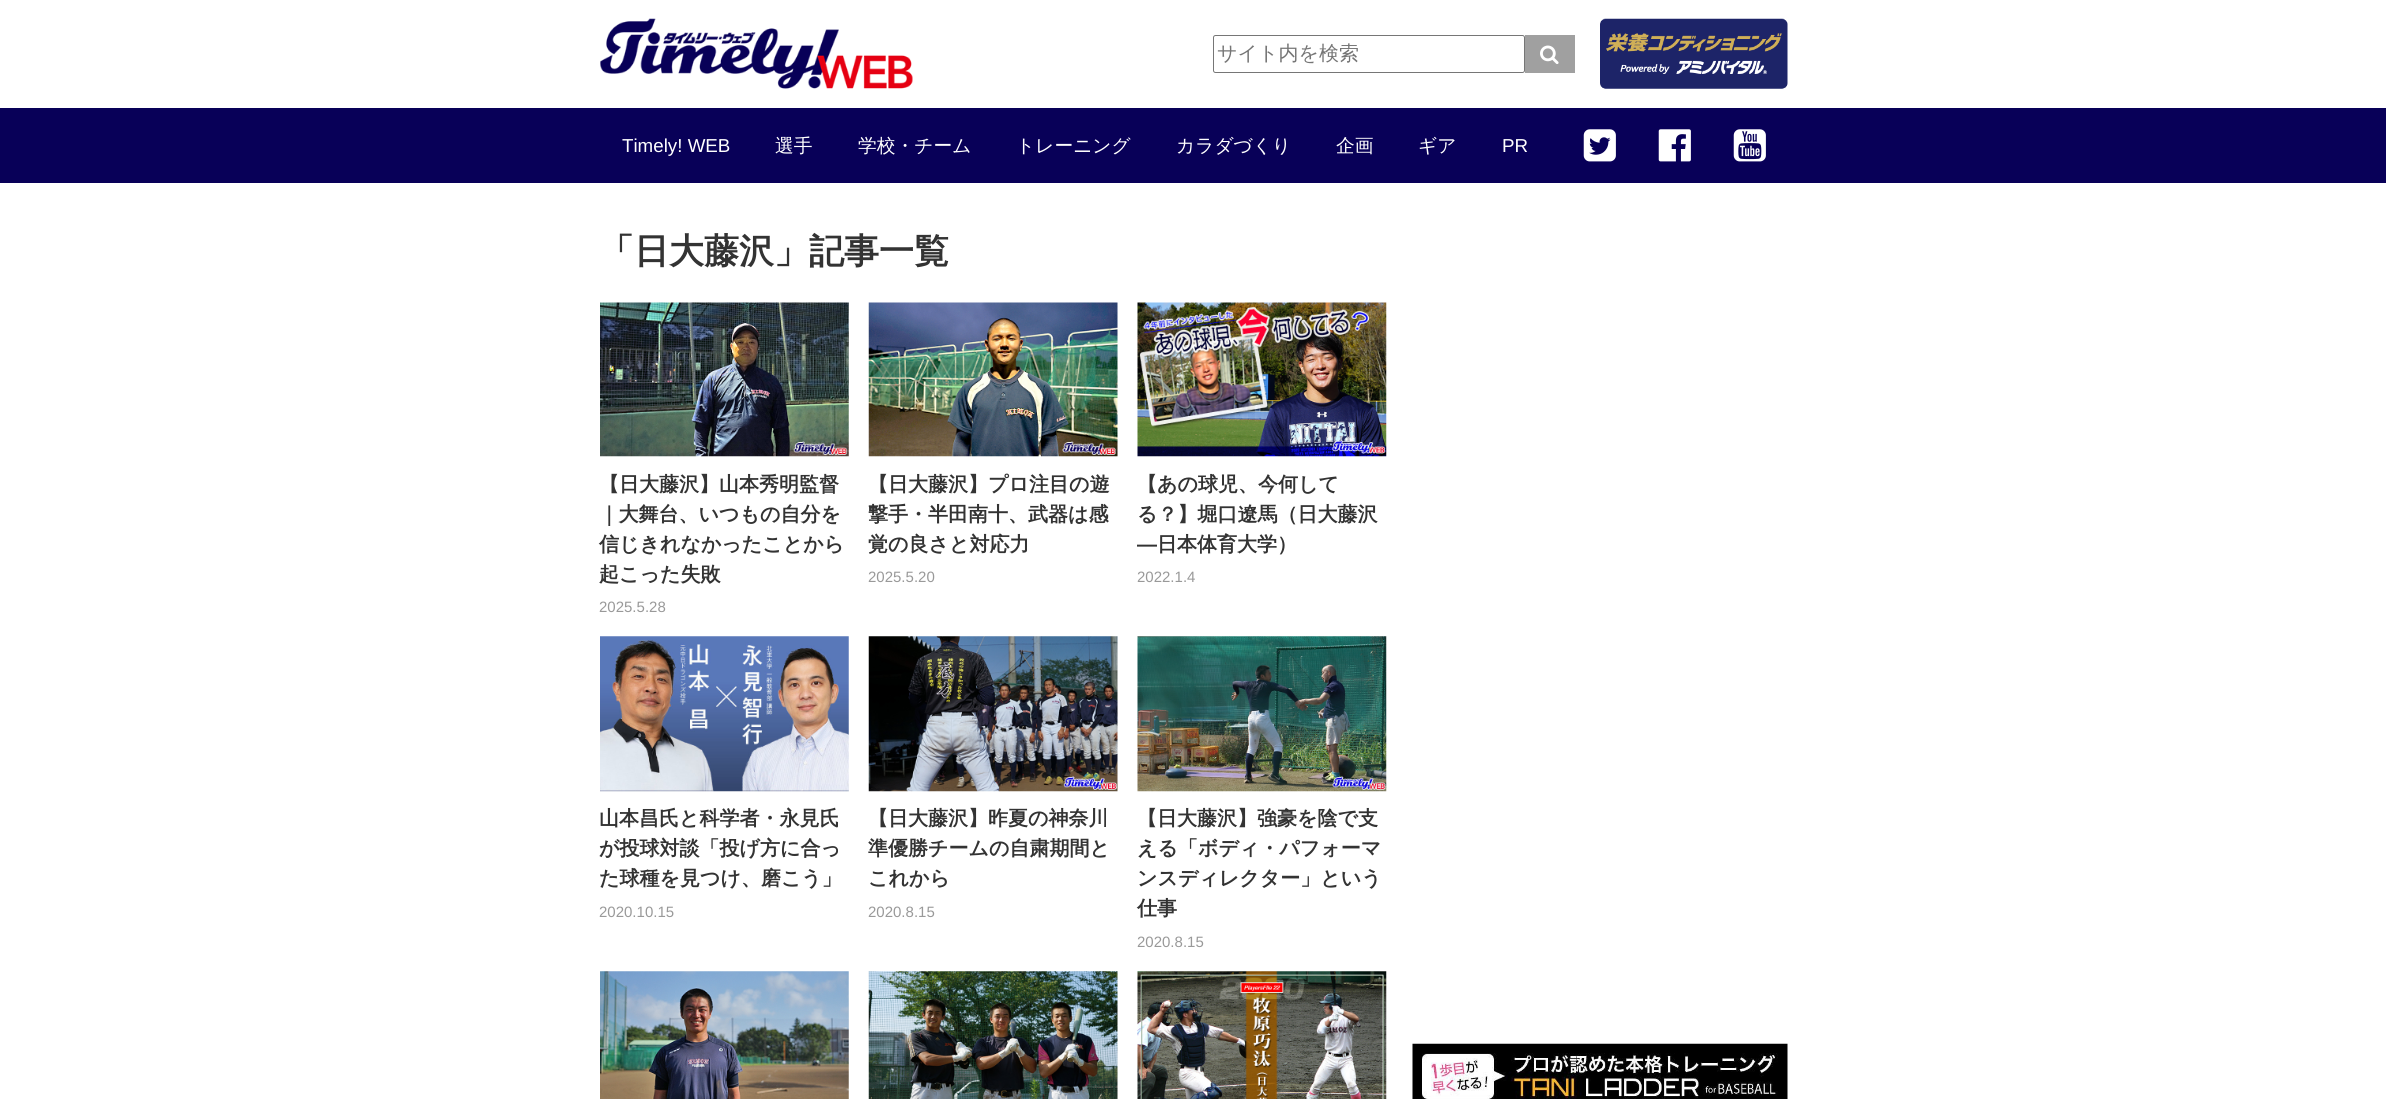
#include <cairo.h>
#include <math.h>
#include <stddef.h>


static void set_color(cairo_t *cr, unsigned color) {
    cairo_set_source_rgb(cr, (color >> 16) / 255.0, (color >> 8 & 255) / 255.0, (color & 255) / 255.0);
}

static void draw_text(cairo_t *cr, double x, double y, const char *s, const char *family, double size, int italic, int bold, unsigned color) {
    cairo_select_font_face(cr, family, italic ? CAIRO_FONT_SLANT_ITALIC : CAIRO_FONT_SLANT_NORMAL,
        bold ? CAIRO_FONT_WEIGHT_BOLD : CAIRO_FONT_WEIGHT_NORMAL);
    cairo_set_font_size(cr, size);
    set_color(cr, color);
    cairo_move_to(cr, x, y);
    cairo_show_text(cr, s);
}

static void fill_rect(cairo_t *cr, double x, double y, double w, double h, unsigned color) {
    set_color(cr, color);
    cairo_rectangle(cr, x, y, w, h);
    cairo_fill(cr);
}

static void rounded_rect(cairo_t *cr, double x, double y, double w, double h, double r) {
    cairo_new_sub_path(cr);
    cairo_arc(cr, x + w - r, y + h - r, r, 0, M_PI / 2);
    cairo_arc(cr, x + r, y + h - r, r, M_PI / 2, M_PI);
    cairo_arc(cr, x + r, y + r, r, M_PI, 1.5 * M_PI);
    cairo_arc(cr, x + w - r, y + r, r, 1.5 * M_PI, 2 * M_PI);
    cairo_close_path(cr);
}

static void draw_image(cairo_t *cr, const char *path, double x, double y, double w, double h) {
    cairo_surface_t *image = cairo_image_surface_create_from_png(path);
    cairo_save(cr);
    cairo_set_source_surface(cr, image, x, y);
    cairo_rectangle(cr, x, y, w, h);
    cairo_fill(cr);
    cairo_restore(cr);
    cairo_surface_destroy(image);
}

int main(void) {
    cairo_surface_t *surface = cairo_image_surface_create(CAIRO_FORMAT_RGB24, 2386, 1099);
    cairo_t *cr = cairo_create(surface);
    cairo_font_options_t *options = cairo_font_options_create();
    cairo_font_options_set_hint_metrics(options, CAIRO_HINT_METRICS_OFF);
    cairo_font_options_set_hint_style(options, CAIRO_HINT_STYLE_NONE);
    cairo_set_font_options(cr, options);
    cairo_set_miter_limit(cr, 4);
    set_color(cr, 0xFFFFFF);
    cairo_paint(cr);
    draw_image(cr, "assets/img1.png", 600, 18, 313, 71);
    rounded_rect(cr, 1213.5, 35.5, 311, 37, 2);
    set_color(cr, 0x767676);
    cairo_set_line_width(cr, 1);
    cairo_stroke(cr);
    draw_text(cr, 1217, 60, "サイト内を検索", "WenQuanYi Zen Hei Medium", 20, 0, 0, 0x757575);
    fill_rect(cr, 1525, 35, 50, 38, 0xA0A0A0);
    draw_image(cr, "assets/img2.png", 1540, 45, 19, 19);
    draw_image(cr, "assets/img3.png", 1600, 18, 188, 71);
    fill_rect(cr, 0, 108, 2386, 75, 0x080058);
    draw_text(cr, 622, 152, "Timely! WEB", "Liberation Sans", 18.75, 0, 0, 0xFFFFFF);
    draw_text(cr, 775, 152, "選手", "WenQuanYi Zen Hei Medium", 18.75, 0, 0, 0xFFFFFF);
    draw_text(cr, 858, 152, "学校・チーム", "WenQuanYi Zen Hei Medium", 18.75, 0, 0, 0xFFFFFF);
    draw_text(cr, 1016, 152, "トレーニング", "WenQuanYi Zen Hei Medium", 18.75, 0, 0, 0xFFFFFF);
    draw_text(cr, 1176, 152, "カラダづくり", "WenQuanYi Zen Hei Medium", 18.75, 0, 0, 0xFFFFFF);
    draw_text(cr, 1336, 152, "企画", "WenQuanYi Zen Hei Medium", 18.75, 0, 0, 0xFFFFFF);
    draw_text(cr, 1418, 152, "ギア", "WenQuanYi Zen Hei Medium", 18.75, 0, 0, 0xFFFFFF);
    draw_text(cr, 1502, 152, "PR", "Liberation Sans", 18.75, 0, 0, 0xFFFFFF);
    draw_image(cr, "assets/img4.png", 1583, 129, 33, 33);
    draw_image(cr, "assets/img5.png", 1658, 129, 33, 33);
    draw_image(cr, "assets/img6.png", 1733, 129, 33, 33);
    draw_text(cr, 599, 263, "「日大藤沢」記事一覧", "WenQuanYi Zen Hei", 35, 0, 1, 0x333333);
    draw_image(cr, "assets/img7.png", 600, 302, 249, 155);
    draw_text(cr, 599, 491, "【日大藤沢】山本秀明監督", "WenQuanYi Zen Hei", 20, 0, 1, 0x333333);
    draw_text(cr, 599, 521, "｜大舞台、いつもの自分を", "WenQuanYi Zen Hei", 20, 0, 1, 0x333333);
    draw_text(cr, 599, 551, "信じきれなかったことから", "WenQuanYi Zen Hei", 20, 0, 1, 0x333333);
    draw_text(cr, 599, 581, "起こった失敗", "WenQuanYi Zen Hei", 20, 0, 1, 0x333333);
    draw_text(cr, 599, 612, "2025.5.28", "Liberation Sans", 15, 0, 0, 0x999999);
    draw_image(cr, "assets/img8.png", 868, 302, 250, 155);
    draw_text(cr, 868, 491, "【日大藤沢】プロ注目の遊", "WenQuanYi Zen Hei", 20, 0, 1, 0x333333);
    draw_text(cr, 868, 521, "撃手・半田南十、武器は感", "WenQuanYi Zen Hei", 20, 0, 1, 0x333333);
    draw_text(cr, 868, 551, "覚の良さと対応力", "WenQuanYi Zen Hei", 20, 0, 1, 0x333333);
    draw_text(cr, 868, 582, "2025.5.20", "Liberation Sans", 15, 0, 0, 0x999999);
    draw_image(cr, "assets/img9.png", 1137, 302, 250, 155);
    draw_text(cr, 1137, 491, "【あの球児、今何して", "WenQuanYi Zen Hei", 20, 0, 1, 0x333333);
    draw_text(cr, 1137, 521, "る？】堀口遼馬（日大藤沢", "WenQuanYi Zen Hei", 20, 0, 1, 0x333333);
    draw_text(cr, 1137, 551, "―", "Liberation Sans", 20, 0, 1, 0x333333);
    draw_text(cr, 1157, 551, "日本体育大学）", "WenQuanYi Zen Hei", 20, 0, 1, 0x333333);
    draw_text(cr, 1137, 582, "2022.1.4", "Liberation Sans", 15, 0, 0, 0x999999);
    draw_image(cr, "assets/img10.png", 600, 636, 249, 156);
    draw_text(cr, 599, 825, "山本昌氏と科学者・永見氏", "WenQuanYi Zen Hei", 20, 0, 1, 0x333333);
    draw_text(cr, 599, 855, "が投球対談「投げ方に合っ", "WenQuanYi Zen Hei", 20, 0, 1, 0x333333);
    draw_text(cr, 599, 885, "た球種を見つけ、磨こう」", "WenQuanYi Zen Hei", 20, 0, 1, 0x333333);
    draw_text(cr, 599, 917, "2020.10.15", "Liberation Sans", 15, 0, 0, 0x999999);
    draw_image(cr, "assets/img11.png", 868, 636, 250, 156);
    draw_text(cr, 868, 825, "【日大藤沢】昨夏の神奈川", "WenQuanYi Zen Hei", 20, 0, 1, 0x333333);
    draw_text(cr, 868, 855, "準優勝チームの自粛期間と", "WenQuanYi Zen Hei", 20, 0, 1, 0x333333);
    draw_text(cr, 868, 885, "これから", "WenQuanYi Zen Hei", 20, 0, 1, 0x333333);
    draw_text(cr, 868, 917, "2020.8.15", "Liberation Sans", 15, 0, 0, 0x999999);
    draw_image(cr, "assets/img12.png", 1137, 636, 250, 156);
    draw_text(cr, 1137, 825, "【日大藤沢】強豪を陰で支", "WenQuanYi Zen Hei", 20, 0, 1, 0x333333);
    draw_text(cr, 1137, 855, "える「ボディ・パフォーマ", "WenQuanYi Zen Hei", 20, 0, 1, 0x333333);
    draw_text(cr, 1137, 885, "ンスディレクター」という", "WenQuanYi Zen Hei", 20, 0, 1, 0x333333);
    draw_text(cr, 1137, 915, "仕事", "WenQuanYi Zen Hei", 20, 0, 1, 0x333333);
    draw_text(cr, 1137, 947, "2020.8.15", "Liberation Sans", 15, 0, 0, 0x999999);
    draw_image(cr, "assets/img13.png", 600, 971, 249, 128);
    draw_image(cr, "assets/img14.png", 868, 971, 250, 128);
    draw_image(cr, "assets/img15.png", 1137, 971, 250, 128);
    draw_image(cr, "assets/img16.png", 1412, 1043, 376, 56);
    cairo_surface_write_to_png(surface, "output.png");
    cairo_font_options_destroy(options);
    cairo_destroy(cr);
    cairo_surface_destroy(surface);
    return 0;
}
